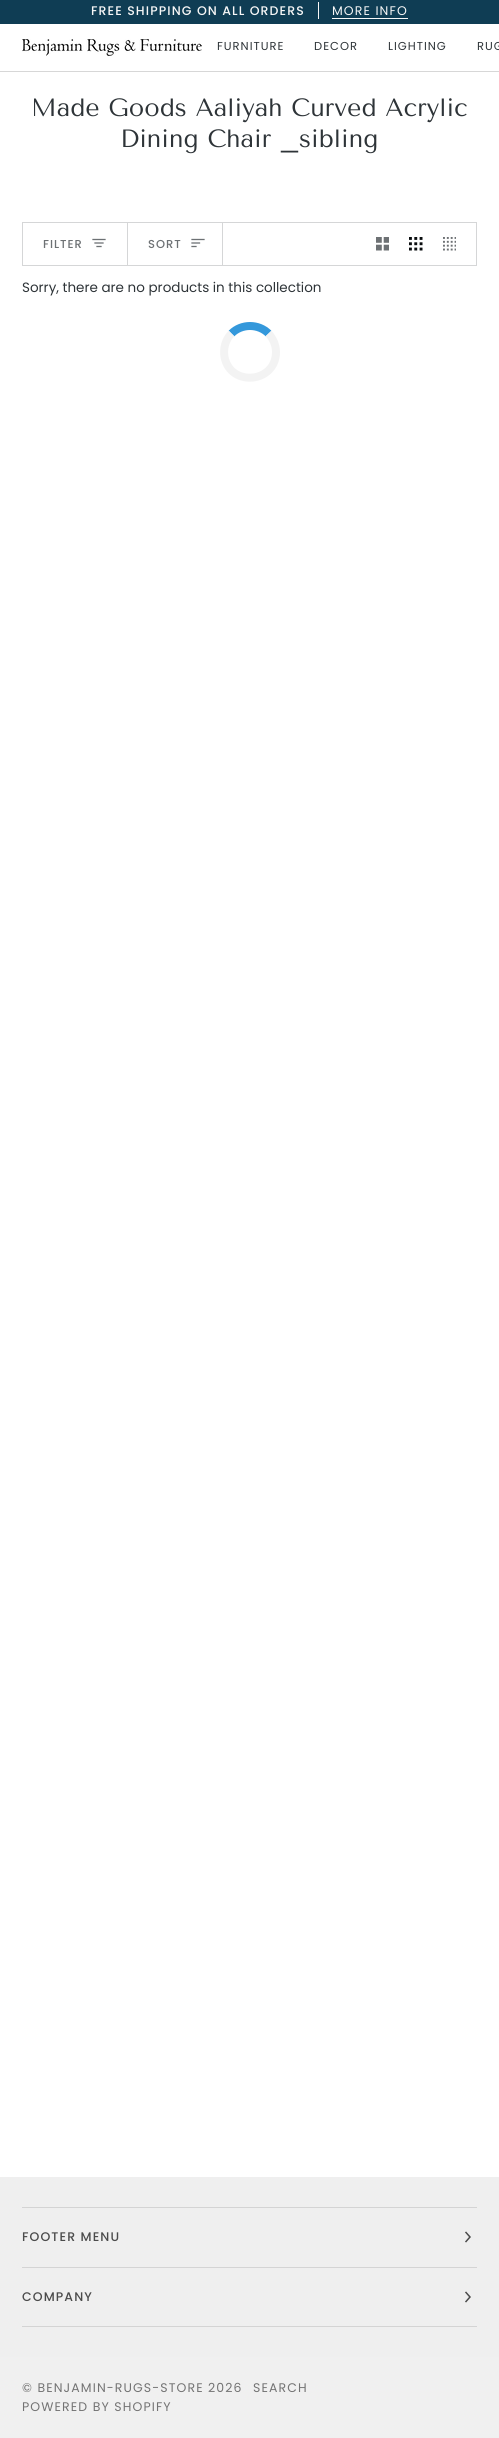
#include <cairo.h>
#include <math.h>
#include <stddef.h>


static void set_color(cairo_t *cr, unsigned color) {
    cairo_set_source_rgb(cr, (color >> 16) / 255.0, (color >> 8 & 255) / 255.0, (color & 255) / 255.0);
}

static void draw_text(cairo_t *cr, double x, double y, const char *s, const char *family, double size, int italic, int bold, unsigned color) {
    cairo_select_font_face(cr, family, italic ? CAIRO_FONT_SLANT_ITALIC : CAIRO_FONT_SLANT_NORMAL,
        bold ? CAIRO_FONT_WEIGHT_BOLD : CAIRO_FONT_WEIGHT_NORMAL);
    cairo_set_font_size(cr, size);
    set_color(cr, color);
    cairo_move_to(cr, x, y);
    cairo_show_text(cr, s);
}

static void draw_spaced(cairo_t *cr, double x, double y, const char *s, double letter, double word) {
    cairo_move_to(cr, x, y);
    while (*s) {
        char ch[5] = {0};
        int n = 0;
        do ch[n++] = *s++; while ((*s & 0xC0) == 0x80);
        cairo_show_text(cr, ch);
        cairo_rel_move_to(cr, letter + word * (*ch == ' '), 0);
    }
}

static void fill_rect(cairo_t *cr, double x, double y, double w, double h, unsigned color) {
    set_color(cr, color);
    cairo_rectangle(cr, x, y, w, h);
    cairo_fill(cr);
}

static void draw_image(cairo_t *cr, const char *path, double x, double y, double w, double h) {
    cairo_surface_t *image = cairo_image_surface_create_from_png(path);
    cairo_save(cr);
    cairo_set_source_surface(cr, image, x, y);
    cairo_rectangle(cr, x, y, w, h);
    cairo_fill(cr);
    cairo_restore(cr);
    cairo_surface_destroy(image);
}

int main(void) {
    cairo_surface_t *surface = cairo_image_surface_create(CAIRO_FORMAT_RGB24, 499, 2438);
    cairo_t *cr = cairo_create(surface);
    cairo_font_options_t *options = cairo_font_options_create();
    cairo_font_options_set_hint_metrics(options, CAIRO_HINT_METRICS_OFF);
    cairo_font_options_set_hint_style(options, CAIRO_HINT_STYLE_NONE);
    cairo_set_font_options(cr, options);
    cairo_set_miter_limit(cr, 4);
    set_color(cr, 0xFFFFFF);
    cairo_paint(cr);
    fill_rect(cr, 0, 0, 499, 24, 0x0F3D54);
    cairo_select_font_face(cr, "Poppins Medium", CAIRO_FONT_SLANT_NORMAL, CAIRO_FONT_WEIGHT_NORMAL);
    cairo_set_font_size(cr, 12.5);
    set_color(cr, 0xF7F7F7);
    draw_spaced(cr, 91, 15, "FREE SHIPPING ON ALL ORDERS", 1.1, 0);
    fill_rect(cr, 318, 2, 1, 17, 0xF7F7F7);
    cairo_select_font_face(cr, "Poppins", CAIRO_FONT_SLANT_NORMAL, CAIRO_FONT_WEIGHT_NORMAL);
    draw_spaced(cr, 332, 15, "MORE INFO", 1.1, 0);
    fill_rect(cr, 332, 18, 76, 1, 0xF7F7F7);
    fill_rect(cr, 0, 71, 499, 1, 0xD7D7D7);
    draw_image(cr, "assets/img1.png", 22, 39, 180, 17);
    cairo_set_font_size(cr, 11.5);
    set_color(cr, 0x2E3438);
    draw_spaced(cr, 217, 50, "FURNITURE", 1, 0);
    draw_spaced(cr, 314, 50, "DECOR", 1, 0);
    draw_spaced(cr, 388, 50, "LIGHTING", 1, 0);
    draw_spaced(cr, 477, 50, "RUG", 1, 0);
    draw_text(cr, 31, 116, "Made Goods Aaliyah Curved Acrylic", "Tenor Sans", 25, 0, 0, 0x2E3438);
    draw_text(cr, 120, 147, "Dining Chair _sibling", "Tenor Sans", 25, 0, 0, 0x2E3438);
    cairo_rectangle(cr, 22.5, 222.5, 454, 43);
    set_color(cr, 0xD5D6D7);
    cairo_set_line_width(cr, 1);
    cairo_stroke(cr);
    fill_rect(cr, 127, 223, 1, 42, 0xD5D6D7);
    cairo_select_font_face(cr, "Poppins Medium", CAIRO_FONT_SLANT_NORMAL, CAIRO_FONT_WEIGHT_NORMAL);
    cairo_set_font_size(cr, 11.5);
    set_color(cr, 0x6D7174);
    draw_spaced(cr, 43, 248, "FILTER", 1, 0);
    cairo_new_path(cr);
    cairo_move_to(cr, 105, 239.5);
    cairo_line_to(cr, 93, 239.5);
    cairo_move_to(cr, 103, 243);
    cairo_line_to(cr, 95, 243);
    cairo_move_to(cr, 101, 246.5);
    cairo_line_to(cr, 97, 246.5);
    cairo_set_line_width(cr, 1.3);
    cairo_set_line_cap(cr, CAIRO_LINE_CAP_SQUARE);
    cairo_stroke(cr);
    fill_rect(cr, 222, 223, 1, 42, 0xD5D6D7);
    set_color(cr, 0x6D7174);
    draw_spaced(cr, 148, 248, "SORT", 1, 0);
    cairo_new_path(cr);
    cairo_move_to(cr, 204, 239.5);
    cairo_line_to(cr, 192, 239.5);
    cairo_move_to(cr, 199.5, 243);
    cairo_line_to(cr, 192, 243);
    cairo_move_to(cr, 196, 246.5);
    cairo_line_to(cr, 192, 246.5);
    cairo_stroke(cr);
    draw_image(cr, "assets/img2.png", 376, 237, 13, 14);
    draw_image(cr, "assets/img3.png", 409, 237, 14, 14);
    draw_image(cr, "assets/img4.png", 443, 237, 13, 14);
    draw_text(cr, 22, 292, "Sorry, there are no products in this collection", "Poppins", 13.5, 0, 0, 0x2E3438);
    cairo_new_path(cr);
    cairo_move_to(cr, 231.5, 333.5);
    cairo_curve_to(cr, 241.5, 323.5, 258.5, 323.5, 268.5, 333.5);
    set_color(cr, 0x3498DB);
    cairo_set_line_width(cr, 8);
    cairo_set_line_cap(cr, CAIRO_LINE_CAP_BUTT);
    cairo_stroke(cr);
    cairo_new_path(cr);
    cairo_move_to(cr, 268.5, 333.5);
    cairo_curve_to(cr, 273, 338.5, 276, 345, 276, 352);
    cairo_curve_to(cr, 276, 383, 230.5, 387.5, 224.5, 357);
    cairo_curve_to(cr, 223, 348.5, 225.5, 339.5, 231.5, 333.5);
    set_color(cr, 0xF3F3F3);
    cairo_stroke(cr);
    fill_rect(cr, 0, 2177, 499, 180, 0xEFEFEF);
    fill_rect(cr, 22, 2207, 455, 1, 0xD4D4D4);
    fill_rect(cr, 22, 2267, 455, 1, 0xD4D4D4);
    cairo_select_font_face(cr, "Poppins Medium", CAIRO_FONT_SLANT_NORMAL, CAIRO_FONT_WEIGHT_NORMAL);
    cairo_set_font_size(cr, 12.5);
    set_color(cr, 0x4B4B4B);
    draw_spaced(cr, 22, 2241, "FOOTER MENU", 1.1, 0);
    cairo_new_path(cr);
    cairo_move_to(cr, 466, 2241.5);
    cairo_line_to(cr, 470, 2237);
    cairo_line_to(cr, 466, 2232.5);
    cairo_set_line_width(cr, 1.5);
    cairo_set_line_cap(cr, CAIRO_LINE_CAP_SQUARE);
    cairo_stroke(cr);
    fill_rect(cr, 22, 2326, 455, 1, 0xD4D4D4);
    set_color(cr, 0x4B4B4B);
    draw_spaced(cr, 22, 2301, "COMPANY", 1.1, 0);
    cairo_new_path(cr);
    cairo_move_to(cr, 466, 2301.5);
    cairo_line_to(cr, 470, 2297);
    cairo_line_to(cr, 466, 2292.5);
    cairo_stroke(cr);
    fill_rect(cr, 0, 2357, 499, 81, 0xF0F0F0);
    cairo_select_font_face(cr, "Poppins", CAIRO_FONT_SLANT_NORMAL, CAIRO_FONT_WEIGHT_NORMAL);
    set_color(cr, 0x737373);
    draw_spaced(cr, 22, 2392, "© BENJAMIN-RUGS-STORE", 1.1, 0);
    draw_spaced(cr, 208, 2392, "2026", 1.1, 0);
    draw_spaced(cr, 253, 2392, "SEARCH", 1.1, 0);
    draw_spaced(cr, 22, 2411, "POWERED BY SHOPIFY", 1.1, 0);
    cairo_surface_write_to_png(surface, "output.png");
    cairo_font_options_destroy(options);
    cairo_destroy(cr);
    cairo_surface_destroy(surface);
    return 0;
}
